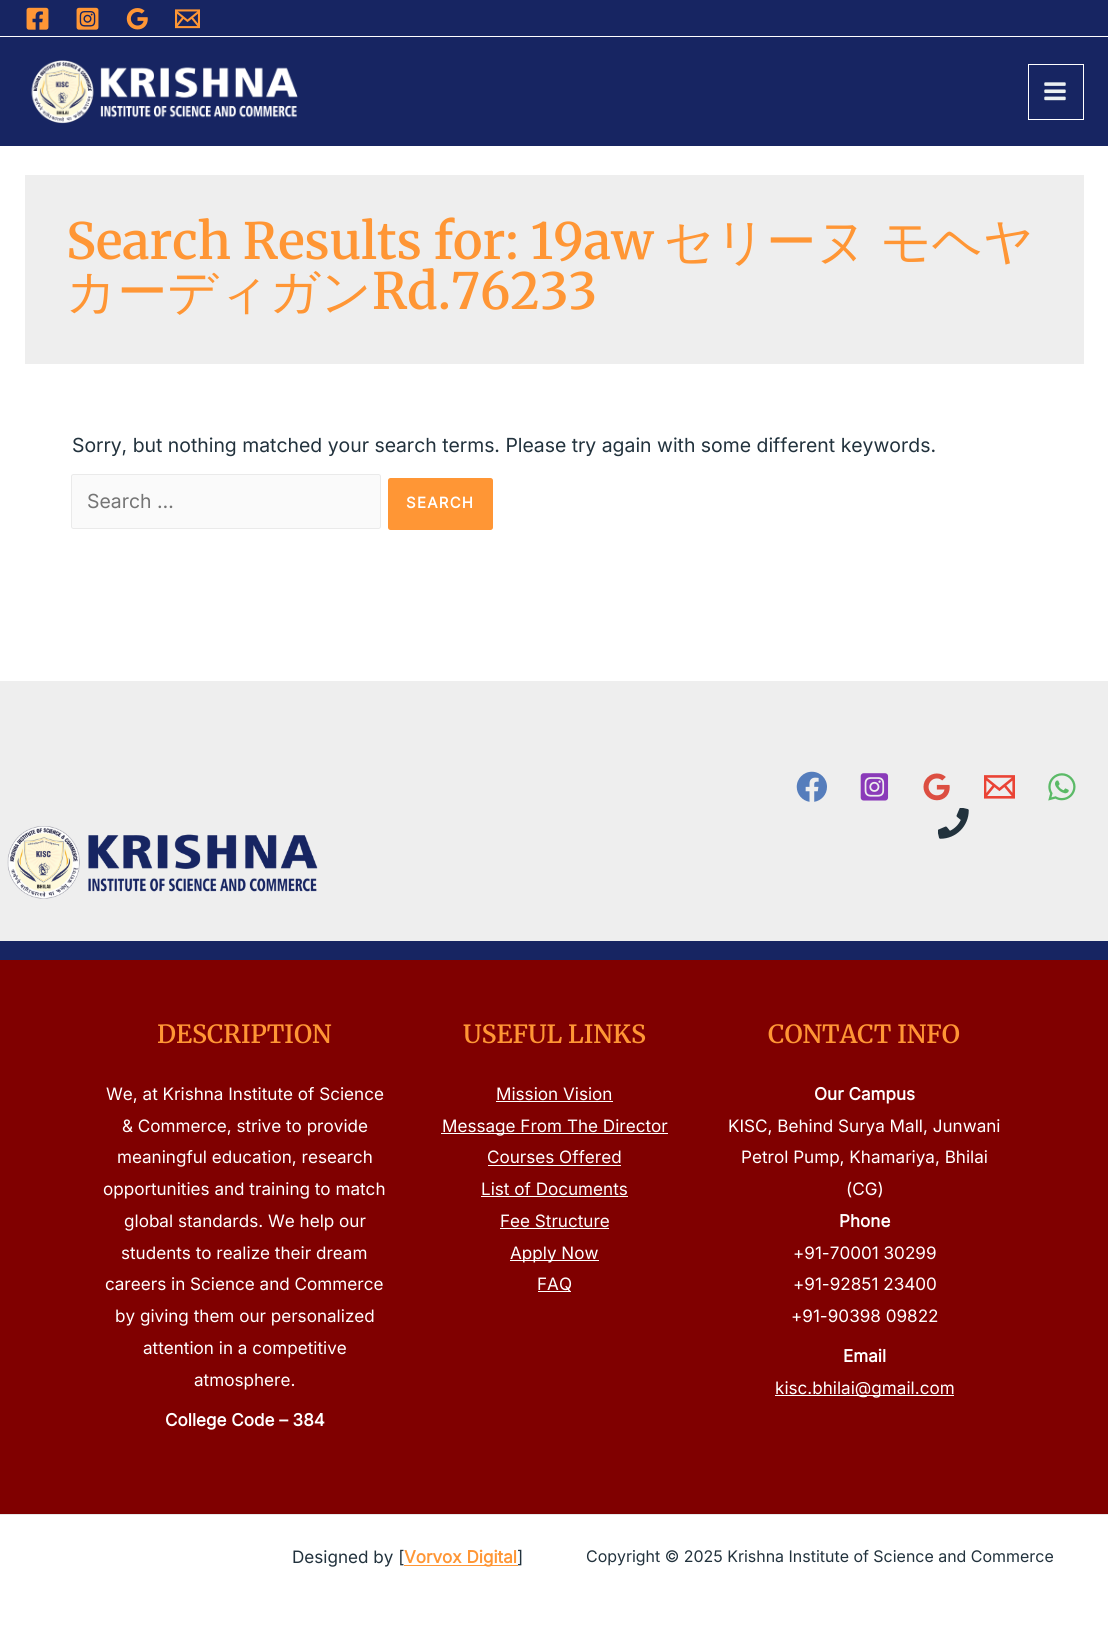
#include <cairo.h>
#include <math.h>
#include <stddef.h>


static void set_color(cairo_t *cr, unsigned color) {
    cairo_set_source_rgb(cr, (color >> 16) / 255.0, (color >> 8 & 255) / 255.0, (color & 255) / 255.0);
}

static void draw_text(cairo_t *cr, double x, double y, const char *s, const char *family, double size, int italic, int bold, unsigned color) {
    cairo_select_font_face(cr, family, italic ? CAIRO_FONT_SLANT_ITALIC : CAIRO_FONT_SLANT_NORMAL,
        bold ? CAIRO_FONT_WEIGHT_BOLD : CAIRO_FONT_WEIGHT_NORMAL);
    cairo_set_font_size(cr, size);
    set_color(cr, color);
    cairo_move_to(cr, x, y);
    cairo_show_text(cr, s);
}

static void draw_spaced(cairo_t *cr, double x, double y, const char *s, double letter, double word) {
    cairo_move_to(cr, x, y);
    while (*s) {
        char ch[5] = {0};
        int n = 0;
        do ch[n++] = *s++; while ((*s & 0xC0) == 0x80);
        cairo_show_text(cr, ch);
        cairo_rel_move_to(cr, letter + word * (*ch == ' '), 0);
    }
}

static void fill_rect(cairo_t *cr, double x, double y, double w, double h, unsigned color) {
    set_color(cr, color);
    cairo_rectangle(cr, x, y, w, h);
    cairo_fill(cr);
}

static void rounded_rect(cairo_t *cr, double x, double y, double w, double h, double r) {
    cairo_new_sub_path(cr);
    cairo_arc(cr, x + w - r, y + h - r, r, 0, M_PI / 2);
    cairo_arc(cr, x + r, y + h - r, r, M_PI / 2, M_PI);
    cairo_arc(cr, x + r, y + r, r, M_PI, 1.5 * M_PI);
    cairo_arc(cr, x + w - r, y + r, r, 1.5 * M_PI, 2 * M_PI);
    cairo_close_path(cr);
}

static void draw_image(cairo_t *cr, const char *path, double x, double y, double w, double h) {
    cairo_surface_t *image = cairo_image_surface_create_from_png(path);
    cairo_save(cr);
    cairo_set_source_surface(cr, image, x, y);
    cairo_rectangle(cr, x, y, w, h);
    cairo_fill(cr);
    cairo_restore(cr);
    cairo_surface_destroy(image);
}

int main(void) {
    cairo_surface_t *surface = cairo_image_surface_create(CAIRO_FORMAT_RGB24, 1108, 1652);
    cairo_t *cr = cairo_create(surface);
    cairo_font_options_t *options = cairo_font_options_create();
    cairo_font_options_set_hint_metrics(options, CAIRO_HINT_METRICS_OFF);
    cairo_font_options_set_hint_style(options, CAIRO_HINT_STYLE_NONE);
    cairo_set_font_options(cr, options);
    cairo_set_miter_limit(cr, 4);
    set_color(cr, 0xFFFFFF);
    cairo_paint(cr);
    fill_rect(cr, 0, 0, 1108, 146, 0x172562);
    fill_rect(cr, 0, 36, 1108, 1, 0xFFFFFF);
    draw_image(cr, "assets/img1.png", 26, 7, 23, 23);
    draw_image(cr, "assets/img2.png", 76, 7, 23, 23);
    draw_image(cr, "assets/img3.png", 126, 8, 22, 22);
    draw_image(cr, "assets/img4.png", 175, 9, 25, 20);
    draw_image(cr, "assets/img5.png", 31, 60, 267, 64);
    cairo_rectangle(cr, 1028.5, 64.5, 55, 55);
    cairo_set_line_width(cr, 1);
    cairo_stroke(cr);
    draw_image(cr, "assets/img6.png", 1044, 82, 22, 19);
    fill_rect(cr, 25, 175, 1059, 189, 0xEEEEEE);
    draw_text(cr, 66, 259, "Search Results for: 19aw", "Merriweather SemiBold", 50, 0, 0, 0xFF9635);
    cairo_select_font_face(cr, "WenQuanYi Zen Hei Medium", CAIRO_FONT_SLANT_NORMAL, CAIRO_FONT_WEIGHT_NORMAL);
    draw_spaced(cr, 664, 259, "セリーヌ モヘヤ", 0, -2);
    draw_text(cr, 66, 309, "カーディガン", "WenQuanYi Zen Hei Medium", 50, 0, 0, 0xFF9635);
    draw_text(cr, 372, 309, "Rd.76233", "Merriweather SemiBold", 50, 0, 0, 0xFF9635);
    draw_text(cr, 72, 452, "Sorry, but nothing matched your search terms. Please try again with some different keywords.", "Inter", 19.4, 0, 0, 0x22323D);
    set_color(cr, 0xFAFAFA);
    rounded_rect(cr, 71.5, 474.5, 309, 54, 2);
    cairo_fill_preserve(cr);
    set_color(cr, 0xEAEAEA);
    cairo_stroke(cr);
    draw_text(cr, 87, 508, "Search …", "Inter", 19.4, 0, 0, 0x757575);
    set_color(cr, 0xFF9635);
    rounded_rect(cr, 388, 478, 105, 52, 2.5);
    cairo_fill(cr);
    cairo_select_font_face(cr, "Inter", CAIRO_FONT_SLANT_NORMAL, CAIRO_FONT_WEIGHT_BOLD);
    cairo_set_font_size(cr, 15);
    set_color(cr, 0xFFFFFF);
    draw_spaced(cr, 406, 508, "SEARCH", 1.25, 0);
    fill_rect(cr, 0, 681, 1108, 260, 0xEEEEEE);
    draw_image(cr, "assets/img7.png", 796, 771, 31, 31);
    draw_image(cr, "assets/img8.png", 860, 773, 29, 28);
    draw_image(cr, "assets/img9.png", 923, 773, 27, 28);
    draw_image(cr, "assets/img10.png", 984, 775, 31, 24);
    draw_image(cr, "assets/img11.png", 1048, 773, 28, 28);
    draw_image(cr, "assets/img12.png", 938, 808, 31, 31);
    draw_image(cr, "assets/img13.png", 7, 826, 311, 73);
    fill_rect(cr, 0, 960, 1108, 554, 0x800000);
    fill_rect(cr, 0, 941, 1108, 19, 0x172562);
    draw_text(cr, 157, 1043, "DESCRIPTION", "Merriweather SemiBold", 25, 0, 0, 0xFF9635);
    draw_text(cr, 106, 1100, "We, at Krishna Institute of Science", "Inter", 17.1, 0, 0, 0xFFFFFF);
    draw_text(cr, 122, 1132, "& Commerce, strive to provide", "Inter", 17.1, 0, 0, 0xFFFFFF);
    draw_text(cr, 117, 1163, "meaningful education, research", "Inter", 17.1, 0, 0, 0xFFFFFF);
    draw_text(cr, 103, 1195, "opportunities and training to match", "Inter", 17.1, 0, 0, 0xFFFFFF);
    draw_text(cr, 124, 1227, "global standards. We help our", "Inter", 17.1, 0, 0, 0xFFFFFF);
    draw_text(cr, 121, 1259, "students to realize their dream", "Inter", 17.1, 0, 0, 0xFFFFFF);
    draw_text(cr, 105, 1290, "careers in Science and Commerce", "Inter", 17.1, 0, 0, 0xFFFFFF);
    draw_text(cr, 115, 1322, "by giving them our personalized", "Inter", 17.1, 0, 0, 0xFFFFFF);
    draw_text(cr, 143, 1354, "attention in a competitive", "Inter", 17.1, 0, 0, 0xFFFFFF);
    draw_text(cr, 194, 1386, "atmosphere.", "Inter", 17.1, 0, 0, 0xFFFFFF);
    draw_text(cr, 165, 1426, "College Code – 384", "Inter", 17.1, 0, 1, 0xFFFFFF);
    draw_text(cr, 463, 1043, "USEFUL LINKS", "Merriweather SemiBold", 25, 0, 0, 0xFF9635);
    draw_text(cr, 496, 1100, "Mission Vision", "Inter", 17.1, 0, 0, 0xFFFFFF);
    fill_rect(cr, 496, 1101, 117, 1, 0xFFFFFF);
    fill_rect(cr, 441, 1133, 227, 1, 0xFFFFFF);
    draw_text(cr, 442, 1132, "Message From The Director", "Inter", 17.1, 0, 0, 0xFFFFFF);
    draw_text(cr, 487, 1163, "Courses Offered", "Inter", 17.1, 0, 0, 0xFFFFFF);
    fill_rect(cr, 488, 1165, 133, 1, 0xFFFFFF);
    draw_text(cr, 481, 1195, "List of Documents", "Inter", 17.1, 0, 0, 0xFFFFFF);
    fill_rect(cr, 481, 1196, 147, 1, 0xFFFFFF);
    draw_text(cr, 500, 1227, "Fee Structure", "Inter", 17.1, 0, 0, 0xFFFFFF);
    fill_rect(cr, 500, 1228, 109, 1, 0xFFFFFF);
    fill_rect(cr, 510, 1260, 89, 1, 0xFFFFFF);
    draw_text(cr, 510, 1259, "Apply Now", "Inter", 17.1, 0, 0, 0xFFFFFF);
    fill_rect(cr, 538, 1291, 33, 1, 0xFFFFFF);
    draw_text(cr, 537, 1290, "FAQ", "Inter", 17.1, 0, 0, 0xFFFFFF);
    draw_text(cr, 768, 1043, "CONTACT INFO", "Merriweather SemiBold", 25, 0, 0, 0xFF9635);
    draw_text(cr, 814, 1100, "Our Campus", "Inter", 17.1, 0, 1, 0xFFFFFF);
    draw_text(cr, 728, 1132, "KISC, Behind Surya Mall, Junwani", "Inter", 17.1, 0, 0, 0xFFFFFF);
    draw_text(cr, 741, 1163, "Petrol Pump, Khamariya, Bhilai", "Inter", 17.1, 0, 0, 0xFFFFFF);
    draw_text(cr, 846, 1195, "(CG)", "Inter", 17.1, 0, 0, 0xFFFFFF);
    draw_text(cr, 839, 1227, "Phone", "Inter", 17.1, 0, 1, 0xFFFFFF);
    draw_text(cr, 793, 1259, "+91-70001 30299", "Inter", 17.1, 0, 0, 0xFFFFFF);
    draw_text(cr, 793, 1290, "+91-92851 23400", "Inter", 17.1, 0, 0, 0xFFFFFF);
    draw_text(cr, 791, 1322, "+91-90398 09822", "Inter", 17.1, 0, 0, 0xFFFFFF);
    draw_text(cr, 843, 1362, "Email", "Inter", 17.1, 0, 1, 0xFFFFFF);
    fill_rect(cr, 775, 1395, 179, 1, 0xFFFFFF);
    draw_text(cr, 775, 1394, "kisc.bhilai@gmail.com", "Inter", 17.1, 0, 0, 0xFFFFFF);
    fill_rect(cr, 0, 1514, 1108, 1, 0xE7E7E7);
    draw_text(cr, 292, 1563, "Designed by [", "Inter", 17.1, 0, 0, 0x22323D);
    fill_rect(cr, 404, 1565, 114, 1, 0xFF9635);
    draw_text(cr, 404, 1563, "Vorvox Digital", "Inter", 17.1, 0, 1, 0xFF9635);
    draw_text(cr, 517, 1563, "]", "Inter", 17.1, 0, 0, 0x22323D);
    draw_text(cr, 586, 1562, "Copyright © 2025 Krishna Institute of Science and Commerce", "Inter", 15.95, 0, 0, 0x22323D);
    cairo_surface_write_to_png(surface, "output.png");
    cairo_font_options_destroy(options);
    cairo_destroy(cr);
    cairo_surface_destroy(surface);
    return 0;
}
